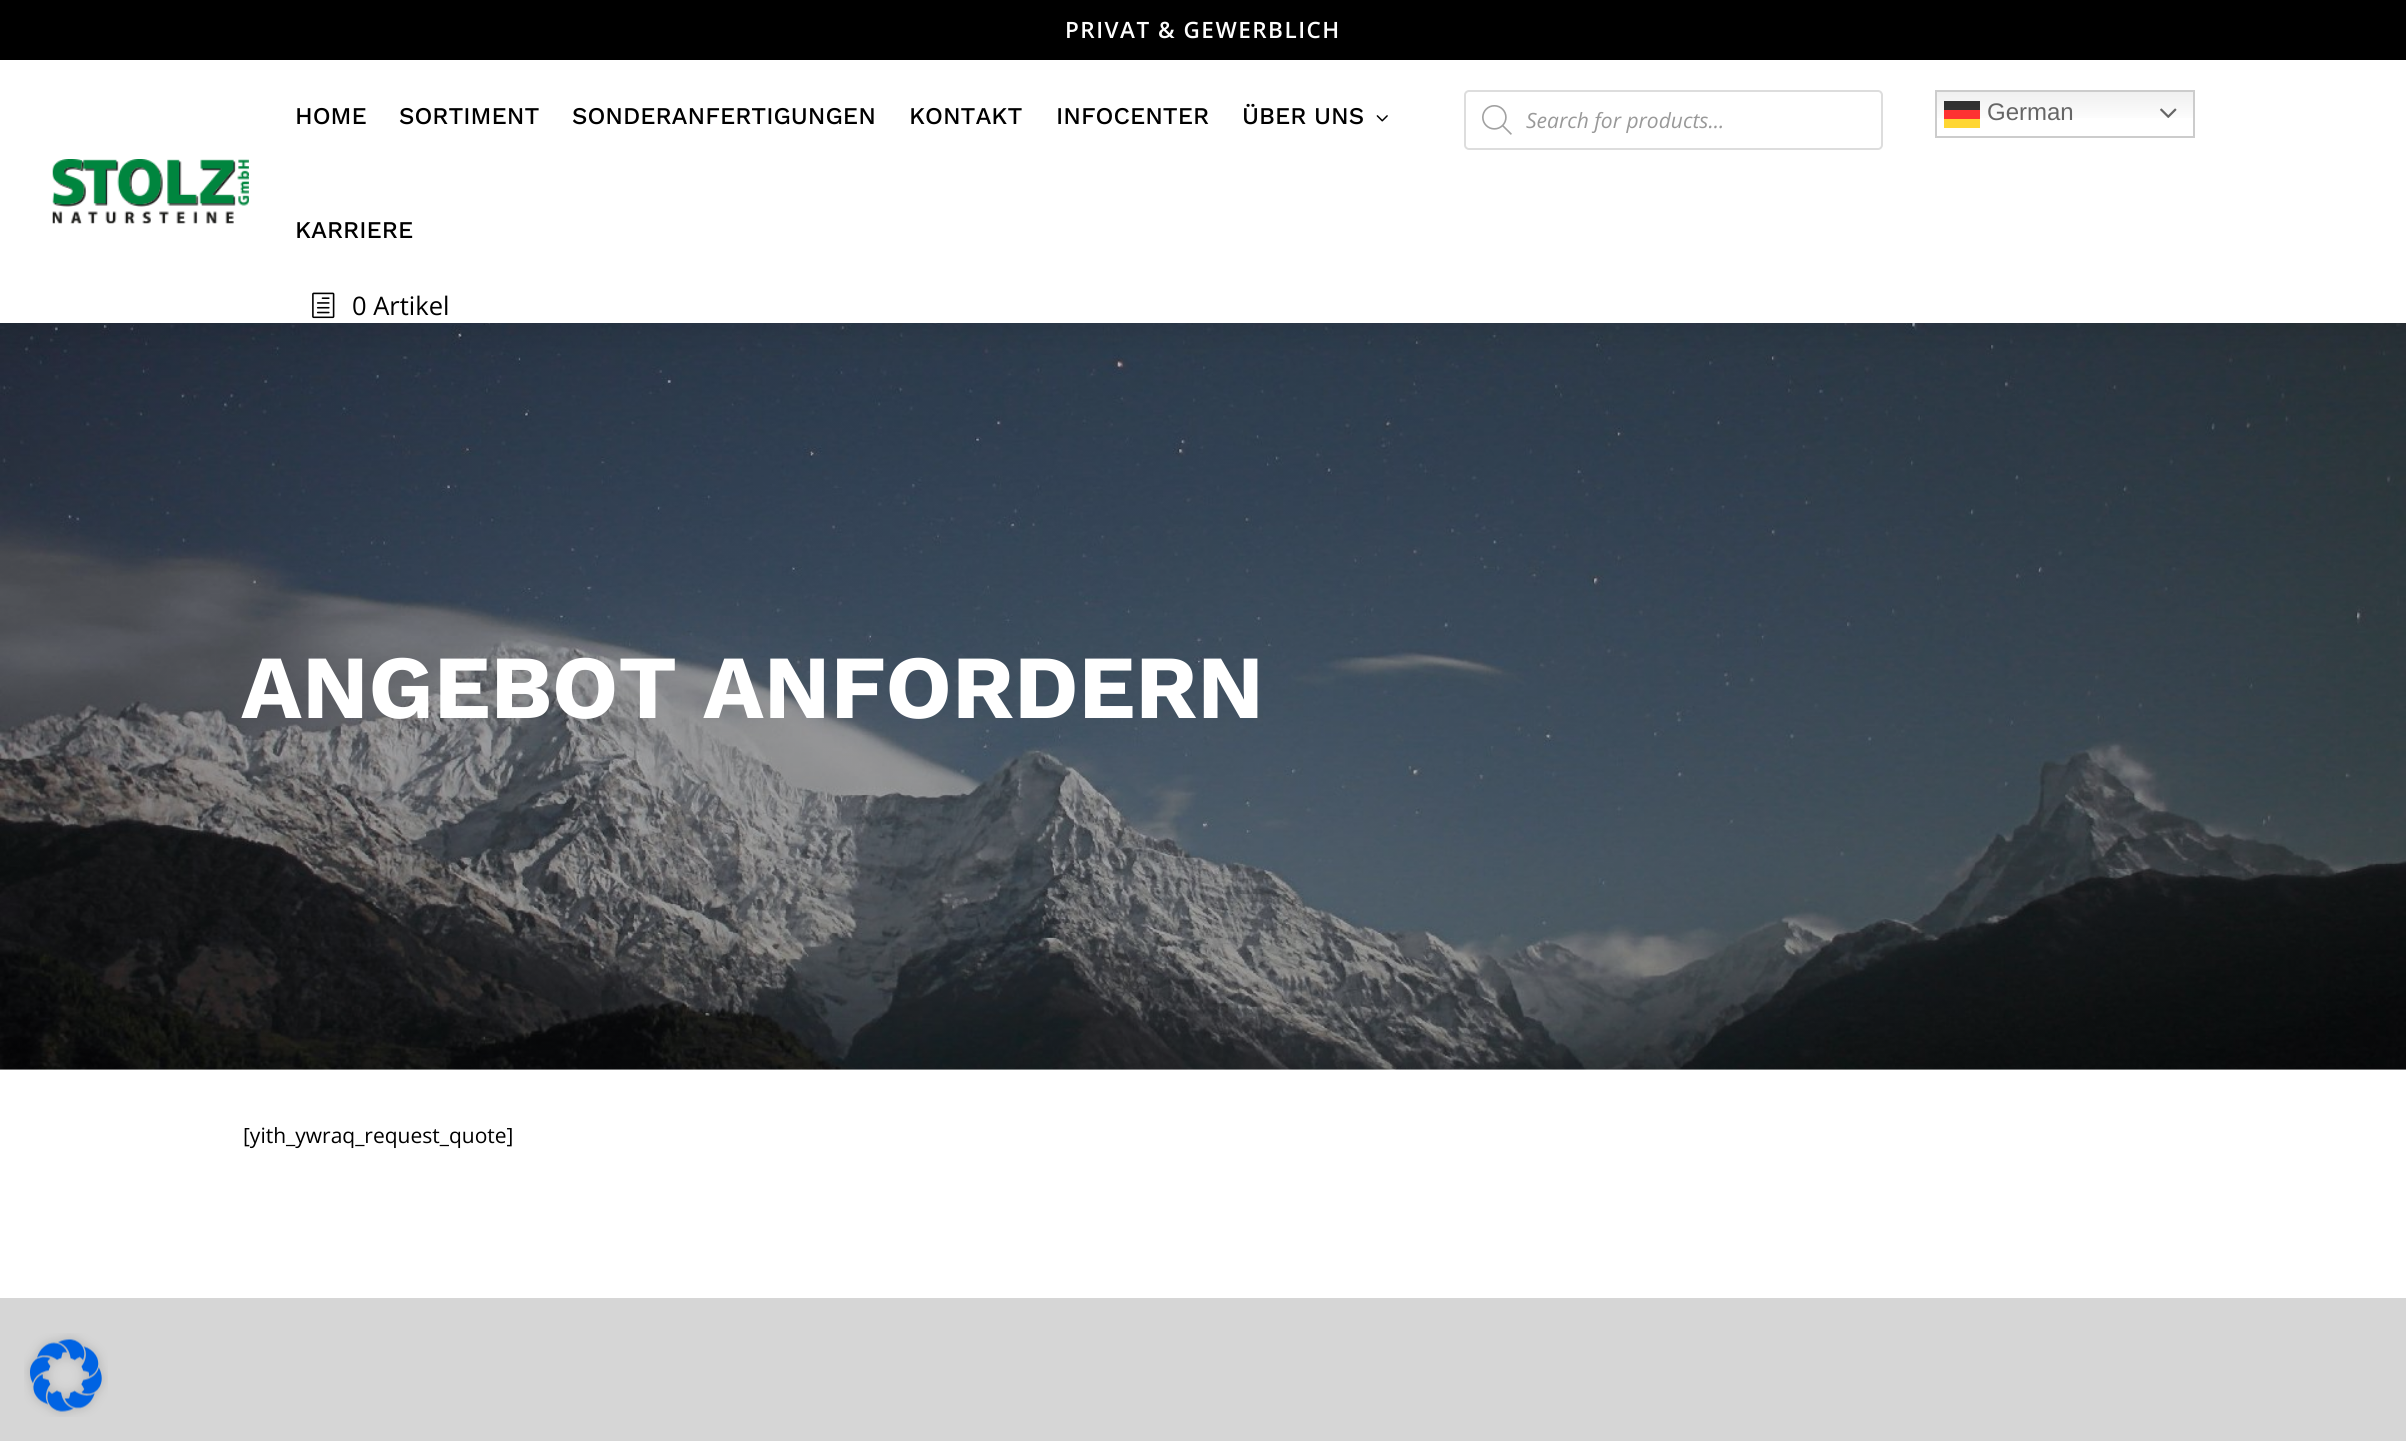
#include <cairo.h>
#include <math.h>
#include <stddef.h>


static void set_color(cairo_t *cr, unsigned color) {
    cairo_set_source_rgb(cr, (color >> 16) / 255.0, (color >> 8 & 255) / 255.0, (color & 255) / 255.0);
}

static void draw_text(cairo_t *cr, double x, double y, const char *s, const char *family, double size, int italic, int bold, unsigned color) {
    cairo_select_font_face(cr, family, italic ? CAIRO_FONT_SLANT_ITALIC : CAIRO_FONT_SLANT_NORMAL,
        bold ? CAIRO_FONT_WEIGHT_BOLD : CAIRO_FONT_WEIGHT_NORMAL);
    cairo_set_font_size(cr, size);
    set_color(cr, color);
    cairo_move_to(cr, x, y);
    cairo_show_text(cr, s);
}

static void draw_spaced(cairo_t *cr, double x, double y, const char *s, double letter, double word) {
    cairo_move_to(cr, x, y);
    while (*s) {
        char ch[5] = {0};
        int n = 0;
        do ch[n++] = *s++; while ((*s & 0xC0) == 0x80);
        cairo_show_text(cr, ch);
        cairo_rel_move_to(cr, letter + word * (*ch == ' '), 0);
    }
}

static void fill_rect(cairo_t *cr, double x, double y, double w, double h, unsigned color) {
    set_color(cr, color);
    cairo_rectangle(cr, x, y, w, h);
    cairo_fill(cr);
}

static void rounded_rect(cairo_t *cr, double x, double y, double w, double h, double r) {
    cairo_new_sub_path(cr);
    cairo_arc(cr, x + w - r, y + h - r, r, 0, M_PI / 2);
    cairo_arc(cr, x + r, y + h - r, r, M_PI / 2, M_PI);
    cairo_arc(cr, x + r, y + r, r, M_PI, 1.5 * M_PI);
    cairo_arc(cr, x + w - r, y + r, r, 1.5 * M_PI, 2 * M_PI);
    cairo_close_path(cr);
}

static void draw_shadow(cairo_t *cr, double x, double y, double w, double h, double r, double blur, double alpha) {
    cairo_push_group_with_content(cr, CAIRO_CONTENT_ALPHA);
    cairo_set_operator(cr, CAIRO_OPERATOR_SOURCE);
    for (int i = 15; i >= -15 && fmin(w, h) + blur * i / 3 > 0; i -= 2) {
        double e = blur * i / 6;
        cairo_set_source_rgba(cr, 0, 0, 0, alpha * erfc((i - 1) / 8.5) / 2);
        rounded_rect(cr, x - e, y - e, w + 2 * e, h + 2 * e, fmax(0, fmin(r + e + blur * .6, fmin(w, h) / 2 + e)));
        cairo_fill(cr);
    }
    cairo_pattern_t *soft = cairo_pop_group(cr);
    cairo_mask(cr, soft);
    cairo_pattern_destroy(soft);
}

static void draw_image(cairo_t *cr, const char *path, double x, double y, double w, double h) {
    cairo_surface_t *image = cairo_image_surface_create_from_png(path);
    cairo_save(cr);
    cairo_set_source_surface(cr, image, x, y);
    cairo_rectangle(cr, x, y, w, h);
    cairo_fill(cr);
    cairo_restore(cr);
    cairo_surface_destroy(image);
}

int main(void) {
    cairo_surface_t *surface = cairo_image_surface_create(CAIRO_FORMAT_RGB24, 2406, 1441);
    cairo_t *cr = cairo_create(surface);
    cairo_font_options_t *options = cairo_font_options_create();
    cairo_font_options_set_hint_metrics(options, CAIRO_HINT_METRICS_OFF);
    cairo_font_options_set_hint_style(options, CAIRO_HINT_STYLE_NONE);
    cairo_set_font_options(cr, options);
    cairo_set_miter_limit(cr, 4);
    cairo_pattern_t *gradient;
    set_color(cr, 0xFFFFFF);
    cairo_paint(cr);
    fill_rect(cr, 0, 0, 2406, 60, 0x000000);
    cairo_select_font_face(cr, "Open Sans SemiBold", CAIRO_FONT_SLANT_NORMAL, CAIRO_FONT_WEIGHT_NORMAL);
    cairo_set_font_size(cr, 22.5);
    set_color(cr, 0xFFFFFF);
    draw_spaced(cr, 1065, 38, "PRIVAT & GEWERBLICH", 1.5, 0);
    draw_image(cr, "assets/img6.png", 0, 323, 2406, 747);
    set_color(cr, 0x000000);
    draw_shadow(cr, 0, 63, 2406, 263, 0, 19, 0.1);
    fill_rect(cr, 0, 60, 2406, 263, 0xFFFFFF);
    draw_image(cr, "assets/img1.png", 52, 159, 197, 65);
    draw_text(cr, 295, 124, "HOME", "Work Sans Medium", 24, 0, 0, 0x000000);
    draw_text(cr, 399, 124, "SORTIMENT", "Work Sans Medium", 24, 0, 0, 0x000000);
    draw_text(cr, 572, 124, "SONDERANFERTIGUNGEN", "Work Sans Medium", 24, 0, 0, 0x000000);
    draw_text(cr, 909, 124, "KONTAKT", "Work Sans Medium", 24, 0, 0, 0x000000);
    draw_text(cr, 1056, 124, "INFOCENTER", "Work Sans Medium", 24, 0, 0, 0x000000);
    draw_text(cr, 1242, 124, "ÜBER UNS", "Work Sans Medium", 24, 0, 0, 0x000000);
    draw_image(cr, "assets/img2.png", 1376, 115, 12, 7);
    draw_text(cr, 295, 238, "KARRIERE", "Work Sans Medium", 24, 0, 0, 0x000000);
    draw_image(cr, "assets/img3.png", 312, 292, 23, 27);
    draw_text(cr, 352, 315, "0 Artikel", "Open Sans", 25.5, 0, 0, 0x000000);
    rounded_rect(cr, 1465, 91, 417, 58, 4);
    set_color(cr, 0xDDDDDD);
    cairo_stroke(cr);
    draw_image(cr, "assets/img4.png", 1482, 105, 30, 30);
    draw_text(cr, 1526, 128, "Search for products...", "Open Sans", 21, 1, 0, 0x999999);
    gradient = cairo_pattern_create_linear(2065, 90, 2065, 138);
    cairo_pattern_add_color_stop_rgba(gradient, 0, 0.937, 0.937, 0.937, 1);
    cairo_pattern_add_color_stop_rgba(gradient, 0.7, 1, 1, 1, 1);
    cairo_set_source(cr, gradient);
    cairo_pattern_destroy(gradient);
    cairo_rectangle(cr, 1937, 92, 256, 26);
    cairo_fill(cr);
    gradient = cairo_pattern_create_linear(2065, 90, 2065, 138);
    cairo_pattern_add_color_stop_rgba(gradient, 0, 0.988, 0.188, 0.188, 1);
    cairo_pattern_add_color_stop_rgba(gradient, 0.7, 1, 0.2, 0.2, 1);
    cairo_set_source(cr, gradient);
    cairo_pattern_destroy(gradient);
    cairo_rectangle(cr, 1944, 110, 36, 9);
    cairo_fill(cr);
    gradient = cairo_pattern_create_linear(2065, 90, 2065, 138);
    cairo_pattern_add_color_stop_rgba(gradient, 0, 0.188, 0.188, 0.188, 1);
    cairo_pattern_add_color_stop_rgba(gradient, 0.7, 0.2, 0.2, 0.2, 1);
    cairo_set_source(cr, gradient);
    cairo_pattern_destroy(gradient);
    cairo_rectangle(cr, 1944, 101, 36, 9);
    cairo_fill(cr);
    cairo_rectangle(cr, 1936, 91, 258, 46);
    set_color(cr, 0xCCCCCC);
    cairo_stroke(cr);
    draw_text(cr, 1987, 120, "German", "Liberation Sans", 24, 0, 0, 0x666666);
    draw_image(cr, "assets/img5.png", 2160, 108, 17, 10);
    fill_rect(cr, 1944, 119, 36, 9, 0xFFD633);
    draw_text(cr, 241, 718, "ANGEBOT ANFORDERN", "Work Sans", 90, 0, 1, 0xFFFFFF);
    draw_text(cr, 243, 1143, "[yith_ywraq_request_quote]", "Open Sans", 21, 0, 0, 0x000000);
    fill_rect(cr, 0, 1298, 2406, 143, 0xD6D6D6);
    draw_image(cr, "assets/img7.png", 24, 1333, 84, 84);
    cairo_surface_write_to_png(surface, "output.png");
    cairo_font_options_destroy(options);
    cairo_destroy(cr);
    cairo_surface_destroy(surface);
    return 0;
}
